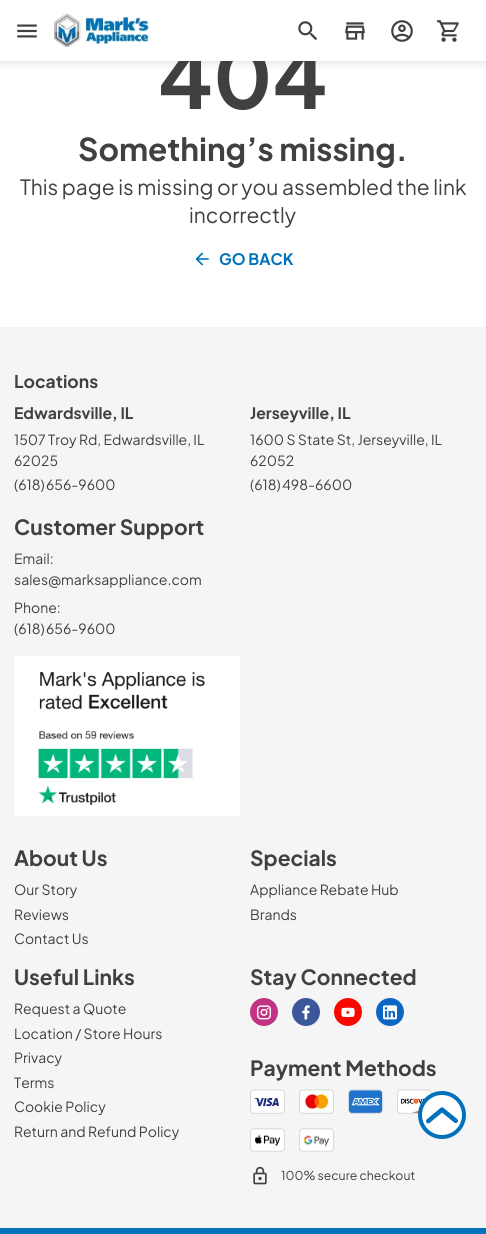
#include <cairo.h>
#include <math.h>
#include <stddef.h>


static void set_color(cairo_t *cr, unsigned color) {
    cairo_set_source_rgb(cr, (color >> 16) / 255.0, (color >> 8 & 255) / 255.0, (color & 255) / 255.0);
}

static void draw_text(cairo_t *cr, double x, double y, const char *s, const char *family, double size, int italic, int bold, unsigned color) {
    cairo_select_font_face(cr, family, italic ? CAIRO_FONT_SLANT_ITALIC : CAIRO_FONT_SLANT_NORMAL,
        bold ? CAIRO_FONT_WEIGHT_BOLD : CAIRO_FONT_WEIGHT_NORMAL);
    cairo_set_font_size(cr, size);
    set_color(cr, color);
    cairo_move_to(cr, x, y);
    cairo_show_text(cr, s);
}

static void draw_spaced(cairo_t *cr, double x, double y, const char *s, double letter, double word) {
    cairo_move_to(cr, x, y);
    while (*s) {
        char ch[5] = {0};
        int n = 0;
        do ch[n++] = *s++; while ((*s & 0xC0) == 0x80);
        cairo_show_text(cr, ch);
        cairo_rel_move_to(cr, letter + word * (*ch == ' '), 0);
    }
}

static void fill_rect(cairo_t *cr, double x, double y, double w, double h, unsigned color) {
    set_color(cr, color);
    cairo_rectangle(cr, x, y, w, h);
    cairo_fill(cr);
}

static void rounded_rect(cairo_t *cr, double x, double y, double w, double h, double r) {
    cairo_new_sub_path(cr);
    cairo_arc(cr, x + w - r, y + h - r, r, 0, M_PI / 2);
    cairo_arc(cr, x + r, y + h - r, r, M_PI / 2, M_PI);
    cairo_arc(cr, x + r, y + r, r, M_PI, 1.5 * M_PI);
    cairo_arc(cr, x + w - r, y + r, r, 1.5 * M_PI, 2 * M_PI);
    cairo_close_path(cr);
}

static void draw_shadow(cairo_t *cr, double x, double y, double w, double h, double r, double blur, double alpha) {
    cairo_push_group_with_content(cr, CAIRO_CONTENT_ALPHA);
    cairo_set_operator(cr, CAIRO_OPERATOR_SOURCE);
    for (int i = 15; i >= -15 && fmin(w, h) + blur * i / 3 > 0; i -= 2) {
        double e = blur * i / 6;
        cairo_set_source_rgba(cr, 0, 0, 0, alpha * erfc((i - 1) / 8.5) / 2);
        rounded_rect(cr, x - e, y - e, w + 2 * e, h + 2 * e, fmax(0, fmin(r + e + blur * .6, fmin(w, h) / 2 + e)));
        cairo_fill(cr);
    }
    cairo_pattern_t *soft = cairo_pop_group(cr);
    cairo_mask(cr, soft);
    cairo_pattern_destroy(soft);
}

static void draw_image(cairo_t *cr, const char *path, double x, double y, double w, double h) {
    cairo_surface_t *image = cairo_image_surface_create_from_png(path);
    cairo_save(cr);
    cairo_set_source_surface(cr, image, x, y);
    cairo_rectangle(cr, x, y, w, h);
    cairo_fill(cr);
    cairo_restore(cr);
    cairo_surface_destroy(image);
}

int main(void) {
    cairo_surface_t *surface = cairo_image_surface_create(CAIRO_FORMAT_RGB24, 486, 1234);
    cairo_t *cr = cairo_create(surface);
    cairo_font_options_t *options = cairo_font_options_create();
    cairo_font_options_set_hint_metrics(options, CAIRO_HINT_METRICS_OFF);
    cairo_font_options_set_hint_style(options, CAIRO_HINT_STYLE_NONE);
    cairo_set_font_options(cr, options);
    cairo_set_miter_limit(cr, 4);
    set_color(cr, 0xFFFFFF);
    cairo_paint(cr);
    set_color(cr, 0x000000);
    draw_shadow(cr, 1, -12, 484, 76, 0, 4, 0.1);
    draw_text(cr, 158, 109, "404", "Plus Jakarta Sans", 84, 0, 1, 0x404040);
    fill_rect(cr, 0, 0, 486, 61, 0xFFFFFF);
    draw_image(cr, "assets/img1.png", 17, 24, 20, 14);
    draw_image(cr, "assets/img2.png", 54, 14, 95, 33);
    draw_image(cr, "assets/img3.png", 298, 21, 20, 20);
    draw_image(cr, "assets/img4.png", 345, 22, 20, 18);
    draw_image(cr, "assets/img5.png", 391, 20, 22, 22);
    draw_image(cr, "assets/img6.png", 437, 20, 22, 22);
    draw_text(cr, 78, 161, "Something’s missing.", "Plus Jakarta Sans", 31.5, 0, 1, 0x404040);
    draw_text(cr, 20, 195, "This page is missing or you assembled the link", "Plus Jakarta Sans", 21, 0, 0, 0x404040);
    draw_text(cr, 189, 223, "incorrectly", "Plus Jakarta Sans", 21, 0, 0, 0x404040);
    draw_image(cr, "assets/img7.png", 195, 252, 14, 14);
    draw_text(cr, 219, 265, "GO BACK", "Plus Jakarta Sans", 15.75, 0, 1, 0x0072BC);
    fill_rect(cr, 0, 327, 486, 901, 0xF5F5F5);
    draw_text(cr, 14, 388, "Locations", "Plus Jakarta Sans", 17.5, 0, 1, 0x404040);
    draw_text(cr, 14, 419, "Edwardsville, IL", "Plus Jakarta Sans", 15.75, 0, 1, 0x404040);
    draw_text(cr, 14, 445, "1507 Troy Rd, Edwardsville, IL", "Plus Jakarta Sans", 14, 0, 0, 0x404040);
    draw_text(cr, 14, 466, "62025", "Plus Jakarta Sans", 14, 0, 0, 0x404040);
    draw_spaced(cr, 14, 490, "(618) 656-9600", 0, -1);
    draw_text(cr, 250, 419, "Jerseyville, IL", "Plus Jakarta Sans", 15.75, 0, 1, 0x404040);
    draw_text(cr, 250, 445, "1600 S State St, Jerseyville, IL", "Plus Jakarta Sans", 14, 0, 0, 0x404040);
    draw_text(cr, 250, 466, "62052", "Plus Jakarta Sans", 14, 0, 0, 0x404040);
    draw_spaced(cr, 250, 490, "(618) 498-6600", 0, -1);
    draw_text(cr, 14, 535, "Customer Support", "Plus Jakarta Sans", 21, 0, 1, 0x404040);
    draw_text(cr, 14, 564, "Email:", "Plus Jakarta Sans", 14, 0, 0, 0x404040);
    draw_text(cr, 14, 585, "sales@marksappliance.com", "Plus Jakarta Sans", 14, 0, 0, 0x404040);
    draw_text(cr, 14, 613, "Phone:", "Plus Jakarta Sans", 14, 0, 0, 0x404040);
    draw_spaced(cr, 14, 634, "(618) 656-9600", 0, -1);
    draw_image(cr, "assets/img8.png", 14, 656, 226, 160);
    draw_text(cr, 14, 866, "About Us", "Plus Jakarta Sans", 21, 0, 1, 0x404040);
    draw_text(cr, 14, 895, "Our Story", "Plus Jakarta Sans", 14, 0, 0, 0x404040);
    draw_text(cr, 14, 920, "Reviews", "Plus Jakarta Sans", 14, 0, 0, 0x404040);
    draw_text(cr, 14, 944, "Contact Us", "Plus Jakarta Sans", 14, 0, 0, 0x404040);
    draw_text(cr, 250, 866, "Specials", "Plus Jakarta Sans", 21, 0, 1, 0x404040);
    draw_text(cr, 250, 895, "Appliance Rebate Hub", "Plus Jakarta Sans", 14, 0, 0, 0x404040);
    draw_text(cr, 250, 920, "Brands", "Plus Jakarta Sans", 14, 0, 0, 0x404040);
    draw_text(cr, 14, 985, "Useful Links", "Plus Jakarta Sans", 21, 0, 1, 0x404040);
    draw_text(cr, 14, 1014, "Request a Quote", "Plus Jakarta Sans", 14, 0, 0, 0x404040);
    draw_text(cr, 14, 1039, "Location / Store Hours", "Plus Jakarta Sans", 14, 0, 0, 0x404040);
    draw_text(cr, 14, 1063, "Privacy", "Plus Jakarta Sans", 14, 0, 0, 0x404040);
    draw_text(cr, 14, 1088, "Terms", "Plus Jakarta Sans", 14, 0, 0, 0x404040);
    draw_text(cr, 14, 1112, "Cookie Policy", "Plus Jakarta Sans", 14, 0, 0, 0x404040);
    draw_text(cr, 14, 1137, "Return and Refund Policy", "Plus Jakarta Sans", 14, 0, 0, 0x404040);
    draw_text(cr, 250, 985, "Stay Connected", "Plus Jakarta Sans", 21, 0, 1, 0x404040);
    set_color(cr, 0xC13584);
    cairo_new_path(cr);
    cairo_arc(cr, 264, 1012, 14, 0, 2 * M_PI);
    cairo_fill(cr);
    draw_image(cr, "assets/img9.png", 257, 1005, 14, 15);
    set_color(cr, 0x3B569B);
    cairo_arc(cr, 306, 1012, 14, 0, 2 * M_PI);
    cairo_fill(cr);
    draw_image(cr, "assets/img10.png", 302, 1005, 8, 15);
    set_color(cr, 0xF80900);
    cairo_arc(cr, 348, 1012, 14, 0, 2 * M_PI);
    cairo_fill(cr);
    draw_image(cr, "assets/img11.png", 341, 1007, 14, 11);
    set_color(cr, 0x0A66C2);
    cairo_arc(cr, 390, 1012, 14, 0, 2 * M_PI);
    cairo_fill(cr);
    draw_image(cr, "assets/img12.png", 383, 1005, 14, 15);
    draw_text(cr, 250, 1076, "Payment Methods", "Plus Jakarta Sans", 21, 0, 1, 0x404040);
    draw_image(cr, "assets/img13.png", 250, 1089, 35, 25);
    draw_image(cr, "assets/img14.png", 299, 1089, 35, 25);
    draw_image(cr, "assets/img15.png", 348, 1089, 35, 25);
    draw_image(cr, "assets/img16.png", 397, 1089, 35, 25);
    draw_image(cr, "assets/img17.png", 250, 1128, 35, 24);
    draw_image(cr, "assets/img18.png", 299, 1128, 35, 24);
    draw_image(cr, "assets/img19.png", 253, 1166, 14, 19);
    draw_text(cr, 281, 1180, "100% secure checkout", "Plus Jakarta Sans", 12.25, 0, 0, 0x404040);
    fill_rect(cr, 0, 1228, 486, 6, 0x0072BC);
    set_color(cr, 0xFFFFFF);
    cairo_new_path(cr);
    cairo_arc(cr, 442, 1115, 22, 0, 2 * M_PI);
    cairo_fill_preserve(cr);
    set_color(cr, 0x0072BC);
    cairo_set_line_width(cr, 4);
    cairo_stroke(cr);
    draw_image(cr, "assets/img20.png", 426, 1107, 32, 17);
    cairo_surface_write_to_png(surface, "output.png");
    cairo_font_options_destroy(options);
    cairo_destroy(cr);
    cairo_surface_destroy(surface);
    return 0;
}
